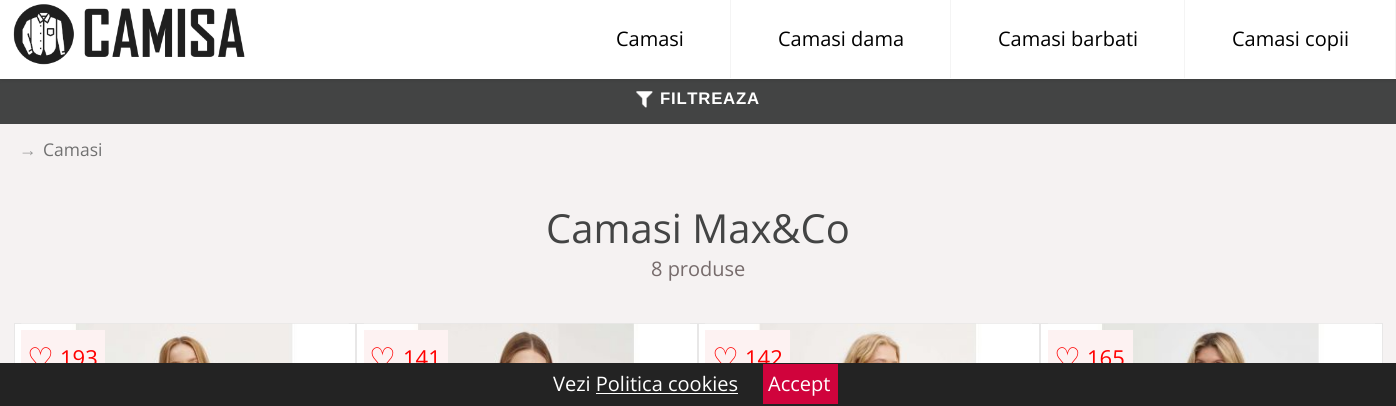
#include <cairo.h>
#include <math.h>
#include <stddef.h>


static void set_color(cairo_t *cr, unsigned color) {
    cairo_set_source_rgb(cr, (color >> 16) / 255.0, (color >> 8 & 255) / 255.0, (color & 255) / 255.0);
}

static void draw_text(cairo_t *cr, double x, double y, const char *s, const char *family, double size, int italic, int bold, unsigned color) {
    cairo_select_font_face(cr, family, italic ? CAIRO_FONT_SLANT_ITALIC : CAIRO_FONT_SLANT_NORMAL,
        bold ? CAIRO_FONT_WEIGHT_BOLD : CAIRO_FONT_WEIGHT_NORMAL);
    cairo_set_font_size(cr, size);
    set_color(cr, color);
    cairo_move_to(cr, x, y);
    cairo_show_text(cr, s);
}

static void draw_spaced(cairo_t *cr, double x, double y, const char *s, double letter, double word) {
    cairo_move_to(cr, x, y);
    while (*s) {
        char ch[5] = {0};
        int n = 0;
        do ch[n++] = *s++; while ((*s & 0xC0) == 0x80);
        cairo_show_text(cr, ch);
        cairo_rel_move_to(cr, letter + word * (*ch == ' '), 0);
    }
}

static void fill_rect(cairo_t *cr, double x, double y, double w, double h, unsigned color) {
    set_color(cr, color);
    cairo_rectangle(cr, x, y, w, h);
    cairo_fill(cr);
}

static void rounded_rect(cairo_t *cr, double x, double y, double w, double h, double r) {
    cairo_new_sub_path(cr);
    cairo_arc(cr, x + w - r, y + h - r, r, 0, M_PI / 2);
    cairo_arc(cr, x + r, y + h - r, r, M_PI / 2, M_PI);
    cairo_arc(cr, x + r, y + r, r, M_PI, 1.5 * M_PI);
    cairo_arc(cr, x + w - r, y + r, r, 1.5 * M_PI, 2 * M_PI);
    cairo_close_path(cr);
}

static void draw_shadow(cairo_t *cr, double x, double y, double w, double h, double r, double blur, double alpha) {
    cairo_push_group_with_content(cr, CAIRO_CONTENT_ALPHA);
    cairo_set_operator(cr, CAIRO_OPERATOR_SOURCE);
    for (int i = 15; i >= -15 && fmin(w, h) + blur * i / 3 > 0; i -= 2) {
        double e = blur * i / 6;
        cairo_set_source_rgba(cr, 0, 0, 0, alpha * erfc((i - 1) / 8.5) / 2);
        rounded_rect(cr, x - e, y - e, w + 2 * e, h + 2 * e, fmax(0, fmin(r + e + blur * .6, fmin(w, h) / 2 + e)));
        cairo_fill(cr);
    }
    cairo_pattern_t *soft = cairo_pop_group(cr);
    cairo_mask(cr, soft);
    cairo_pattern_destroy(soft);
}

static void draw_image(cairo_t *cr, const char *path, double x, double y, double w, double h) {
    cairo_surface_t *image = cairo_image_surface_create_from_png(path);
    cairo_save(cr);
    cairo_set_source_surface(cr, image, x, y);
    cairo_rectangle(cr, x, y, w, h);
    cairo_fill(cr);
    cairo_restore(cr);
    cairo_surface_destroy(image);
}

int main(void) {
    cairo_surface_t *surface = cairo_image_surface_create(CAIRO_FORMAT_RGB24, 1396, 406);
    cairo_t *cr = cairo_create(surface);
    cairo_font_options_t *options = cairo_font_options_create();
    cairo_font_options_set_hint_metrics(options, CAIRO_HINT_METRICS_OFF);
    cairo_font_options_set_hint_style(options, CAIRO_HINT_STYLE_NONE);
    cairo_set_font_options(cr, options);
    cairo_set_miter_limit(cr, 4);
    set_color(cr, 0xF5F2F2);
    cairo_paint(cr);
    fill_rect(cr, 0, 79, 1396, 45, 0x434444);
    set_color(cr, 0x000000);
    draw_shadow(cr, 1, 1, 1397, 79, 0, 2.5, 0.1);
    fill_rect(cr, 0, 0, 1396, 79, 0xFFFFFF);
    draw_image(cr, "assets/img1.png", 13, 4, 232, 61);
    fill_rect(cr, 730, 0, 1, 78, 0xF4F4F4);
    draw_text(cr, 616, 46, "Camasi", "Open Sans", 20, 0, 0, 0x000000);
    fill_rect(cr, 950, 0, 1, 78, 0xF4F4F4);
    draw_text(cr, 778, 46, "Camasi dama", "Open Sans", 20, 0, 0, 0x000000);
    fill_rect(cr, 1184, 0, 1, 78, 0xF4F4F4);
    draw_text(cr, 998, 46, "Camasi barbati", "Open Sans", 20, 0, 0, 0x000000);
    fill_rect(cr, 1395, 0, 1, 78, 0xF4F4F4);
    draw_text(cr, 1232, 46, "Camasi copii", "Open Sans", 20, 0, 0, 0x000000);
    draw_image(cr, "assets/img2.png", 636, 91, 17, 17);
    cairo_select_font_face(cr, "Liberation Sans", CAIRO_FONT_SLANT_NORMAL, CAIRO_FONT_WEIGHT_BOLD);
    cairo_set_font_size(cr, 16.75);
    set_color(cr, 0xFFFFFF);
    draw_spaced(cr, 660, 104, "FILTREAZA", 0.75, 0);
    draw_text(cr, 19, 156, "→", "Liberation Sans", 17.5, 0, 0, 0x999999);
    draw_text(cr, 43, 156, "Camasi", "Open Sans", 17.5, 0, 0, 0x717171);
    draw_text(cr, 546, 243, "Camasi Max&Co", "Open Sans", 40, 0, 0, 0x434444);
    draw_text(cr, 651, 276, "8 produse", "Open Sans", 20, 0, 0, 0x766B6B);
    fill_rect(cr, 15, 324, 340, 39, 0xFFFFFF);
    cairo_rectangle(cr, 14.5, 323.5, 341, 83);
    set_color(cr, 0xE8E7E7);
    cairo_set_line_width(cr, 1);
    cairo_stroke(cr);
    draw_image(cr, "assets/img3.png", 21, 323, 328, 40);
    fill_rect(cr, 21, 330, 84, 33, 0xFDF2F2);
    draw_text(cr, 27, 369, "♡", "DejaVu Sans", 30, 0, 0, 0xFF0000);
    draw_text(cr, 60, 366, "193", "Open Sans", 22, 0, 0, 0xFF0000);
    fill_rect(cr, 357, 324, 340, 39, 0xFFFFFF);
    cairo_rectangle(cr, 356.5, 323.5, 341, 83);
    set_color(cr, 0xE8E7E7);
    cairo_stroke(cr);
    draw_image(cr, "assets/img4.png", 364, 323, 326, 40);
    fill_rect(cr, 364, 330, 84, 33, 0xFDF2F2);
    draw_text(cr, 369, 369, "♡", "DejaVu Sans", 30, 0, 0, 0xFF0000);
    draw_text(cr, 403, 366, "141", "Open Sans", 22, 0, 0, 0xFF0000);
    fill_rect(cr, 699, 324, 340, 39, 0xFFFFFF);
    cairo_rectangle(cr, 698.5, 323.5, 341, 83);
    set_color(cr, 0xE8E7E7);
    cairo_stroke(cr);
    draw_image(cr, "assets/img5.png", 705, 323, 327, 40);
    fill_rect(cr, 705, 330, 85, 33, 0xFDF2F2);
    draw_text(cr, 712, 369, "♡", "DejaVu Sans", 30, 0, 0, 0xFF0000);
    draw_text(cr, 745, 366, "142", "Open Sans", 22, 0, 0, 0xFF0000);
    fill_rect(cr, 1041, 324, 341, 39, 0xFFFFFF);
    cairo_rectangle(cr, 1040.5, 323.5, 342, 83);
    set_color(cr, 0xE8E7E7);
    cairo_stroke(cr);
    draw_image(cr, "assets/img6.png", 1048, 323, 327, 40);
    fill_rect(cr, 1048, 330, 85, 33, 0xFDF2F2);
    draw_text(cr, 1054, 369, "♡", "DejaVu Sans", 30, 0, 0, 0xFF0000);
    draw_text(cr, 1087, 366, "165", "Open Sans", 22, 0, 0, 0xFF0000);
    fill_rect(cr, 0, 363, 1396, 43, 0x232323);
    draw_text(cr, 553, 391, "Vezi Politica cookies", "Open Sans", 20, 0, 0, 0xFFFFFF);
    fill_rect(cr, 596, 393, 142, 1, 0xFFFFFF);
    fill_rect(cr, 763, 364, 75, 40, 0xD0033C);
    draw_text(cr, 768, 391, "Accept", "Open Sans", 20, 0, 0, 0xFFFFFF);
    cairo_surface_write_to_png(surface, "output.png");
    cairo_font_options_destroy(options);
    cairo_destroy(cr);
    cairo_surface_destroy(surface);
    return 0;
}
